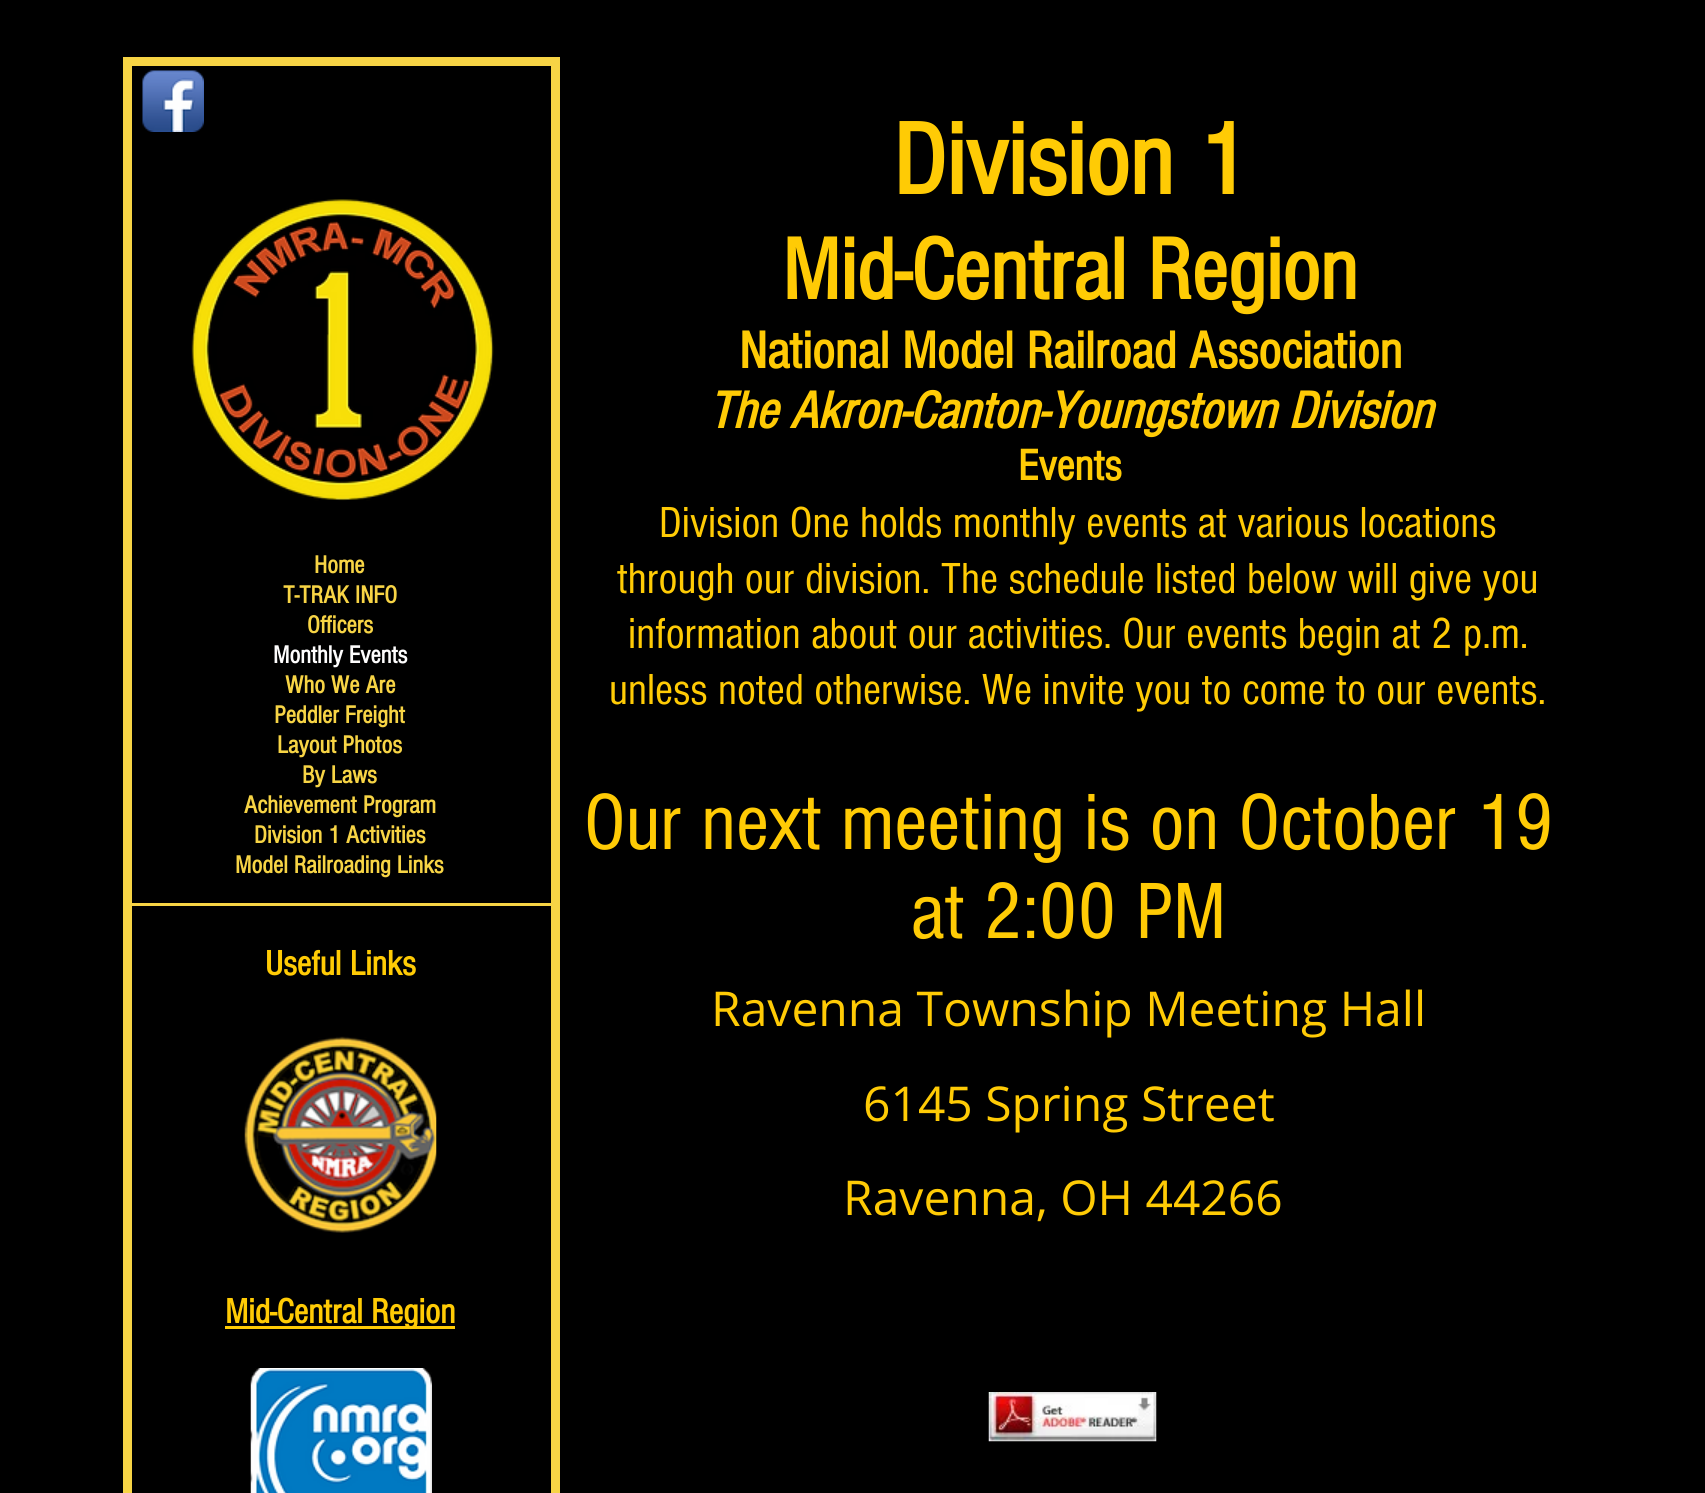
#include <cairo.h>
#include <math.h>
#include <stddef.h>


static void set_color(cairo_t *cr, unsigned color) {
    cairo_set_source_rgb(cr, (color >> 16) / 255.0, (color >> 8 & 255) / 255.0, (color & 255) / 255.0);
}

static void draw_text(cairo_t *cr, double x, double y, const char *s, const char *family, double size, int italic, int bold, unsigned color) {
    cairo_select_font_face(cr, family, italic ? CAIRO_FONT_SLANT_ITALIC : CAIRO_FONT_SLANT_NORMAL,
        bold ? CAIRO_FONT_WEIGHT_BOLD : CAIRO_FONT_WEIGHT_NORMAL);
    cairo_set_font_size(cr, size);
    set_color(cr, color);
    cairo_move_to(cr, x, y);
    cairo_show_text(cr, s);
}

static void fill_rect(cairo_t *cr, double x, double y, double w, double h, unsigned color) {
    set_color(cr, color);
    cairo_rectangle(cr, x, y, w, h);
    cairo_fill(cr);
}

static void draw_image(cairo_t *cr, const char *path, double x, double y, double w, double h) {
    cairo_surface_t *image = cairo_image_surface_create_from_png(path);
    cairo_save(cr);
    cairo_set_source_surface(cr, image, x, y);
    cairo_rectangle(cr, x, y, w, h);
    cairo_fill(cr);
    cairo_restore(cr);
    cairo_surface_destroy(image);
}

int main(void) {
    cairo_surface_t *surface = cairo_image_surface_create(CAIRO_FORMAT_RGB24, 1705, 1493);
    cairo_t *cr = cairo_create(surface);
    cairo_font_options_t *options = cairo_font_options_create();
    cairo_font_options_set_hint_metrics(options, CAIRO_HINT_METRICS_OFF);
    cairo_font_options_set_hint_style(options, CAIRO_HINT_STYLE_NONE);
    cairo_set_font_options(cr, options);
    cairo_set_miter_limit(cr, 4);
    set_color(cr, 0x000000);
    cairo_paint(cr);
    draw_text(cr, 893, 194, "Division 1", "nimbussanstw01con", 105, 0, 1, 0xFFCB05);
    draw_text(cr, 782, 299, "Mid-Central Region", "nimbussanstw01con", 90, 0, 1, 0xFFCB05);
    draw_text(cr, 739, 368, "National Model Railroad Association", "nimbussanstw01con", 54, 0, 1, 0xFFCB05);
    draw_text(cr, 708, 428, "The Akron-Canton-Youngstown Division", "nimbussanstw01con", 54, 1, 1, 0xFFCB05);
    draw_text(cr, 1018, 480, "Events", "nimbussanstw01con", 45, 0, 1, 0xFFCB05);
    cairo_rectangle(cr, 127.5, 61.5, 428, 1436);
    set_color(cr, 0xF7D445);
    cairo_set_line_width(cr, 9);
    cairo_stroke(cr);
    draw_image(cr, "assets/img1.png", 142, 70, 62, 62);
    draw_image(cr, "assets/img2.png", 191, 199, 303, 302);
    draw_text(cr, 314, 573, "Home", "nimbussanstw01con", 25.5, 0, 1, 0xF7D445);
    draw_text(cr, 283, 603, "T-TRAK INFO", "nimbussanstw01con", 25.5, 0, 1, 0xF7D445);
    draw_text(cr, 307, 633, "Officers", "nimbussanstw01con", 25.5, 0, 1, 0xF7D445);
    draw_text(cr, 273, 663, "Monthly Events", "nimbussanstw01con", 25.5, 0, 1, 0xFEFDFD);
    draw_text(cr, 285, 693, "Who We Are", "nimbussanstw01con", 25.5, 0, 1, 0xF7D445);
    draw_text(cr, 274, 723, "Peddler Freight", "nimbussanstw01con", 25.5, 0, 1, 0xF7D445);
    draw_text(cr, 277, 753, "Layout Photos", "nimbussanstw01con", 25.5, 0, 1, 0xF7D445);
    draw_text(cr, 302, 783, "By Laws", "nimbussanstw01con", 25.5, 0, 1, 0xF7D445);
    draw_text(cr, 244, 813, "Achievement Program", "nimbussanstw01con", 25.5, 0, 1, 0xF7D445);
    draw_text(cr, 254, 843, "Division 1 Activities", "nimbussanstw01con", 25.5, 0, 1, 0xF7D445);
    draw_text(cr, 235, 873, "Model Railroading Links", "nimbussanstw01con", 25.5, 0, 1, 0xF7D445);
    fill_rect(cr, 131, 903, 420, 3, 0xF7D445);
    draw_text(cr, 265, 975, "Useful Links", "nimbussanstw01con", 36, 0, 1, 0xFFCB05);
    draw_image(cr, "assets/img3.png", 244, 1036, 193, 197);
    fill_rect(cr, 225, 1326, 230, 3, 0xFFCB05);
    draw_text(cr, 225, 1323, "Mid-Central Region", "nimbussanstw01con", 36, 0, 1, 0xFFCB05);
    draw_image(cr, "assets/img4.png", 250, 1368, 182, 125);
    draw_text(cr, 659, 537, "Division One holds monthly events at various locations", "nimbussanstw01con", 45, 0, 0, 0xFFCB05);
    draw_text(cr, 617, 593, "through our division. The schedule listed below will give you", "nimbussanstw01con", 45, 0, 0, 0xFFCB05);
    draw_text(cr, 628, 648, "information about our activities. Our events begin at 2 p.m.", "nimbussanstw01con", 45, 0, 0, 0xFFCB05);
    draw_text(cr, 609, 704, "unless noted otherwise. We invite you to come to our events.", "nimbussanstw01con", 45, 0, 0, 0xFFCB05);
    draw_text(cr, 584, 849, "Our next meeting is on October 19", "nimbussanstw01con", 82.5, 0, 0, 0xFFCB05);
    draw_text(cr, 911, 938, "at 2:00 PM", "nimbussanstw01con", 82.5, 0, 0, 0xFFCB05);
    draw_text(cr, 711, 1026, "Ravenna Township Meeting Hall", "Open Sans", 48, 0, 0, 0xFFCB05);
    draw_text(cr, 863, 1121, "6145 Spring Street", "Open Sans", 48, 0, 0, 0xFFCB05);
    draw_text(cr, 843, 1215, "Ravenna, OH 44266", "Open Sans", 48, 0, 0, 0xFFCB05);
    draw_image(cr, "assets/img5.png", 988, 1392, 169, 50);
    cairo_surface_write_to_png(surface, "output.png");
    cairo_font_options_destroy(options);
    cairo_destroy(cr);
    cairo_surface_destroy(surface);
    return 0;
}
